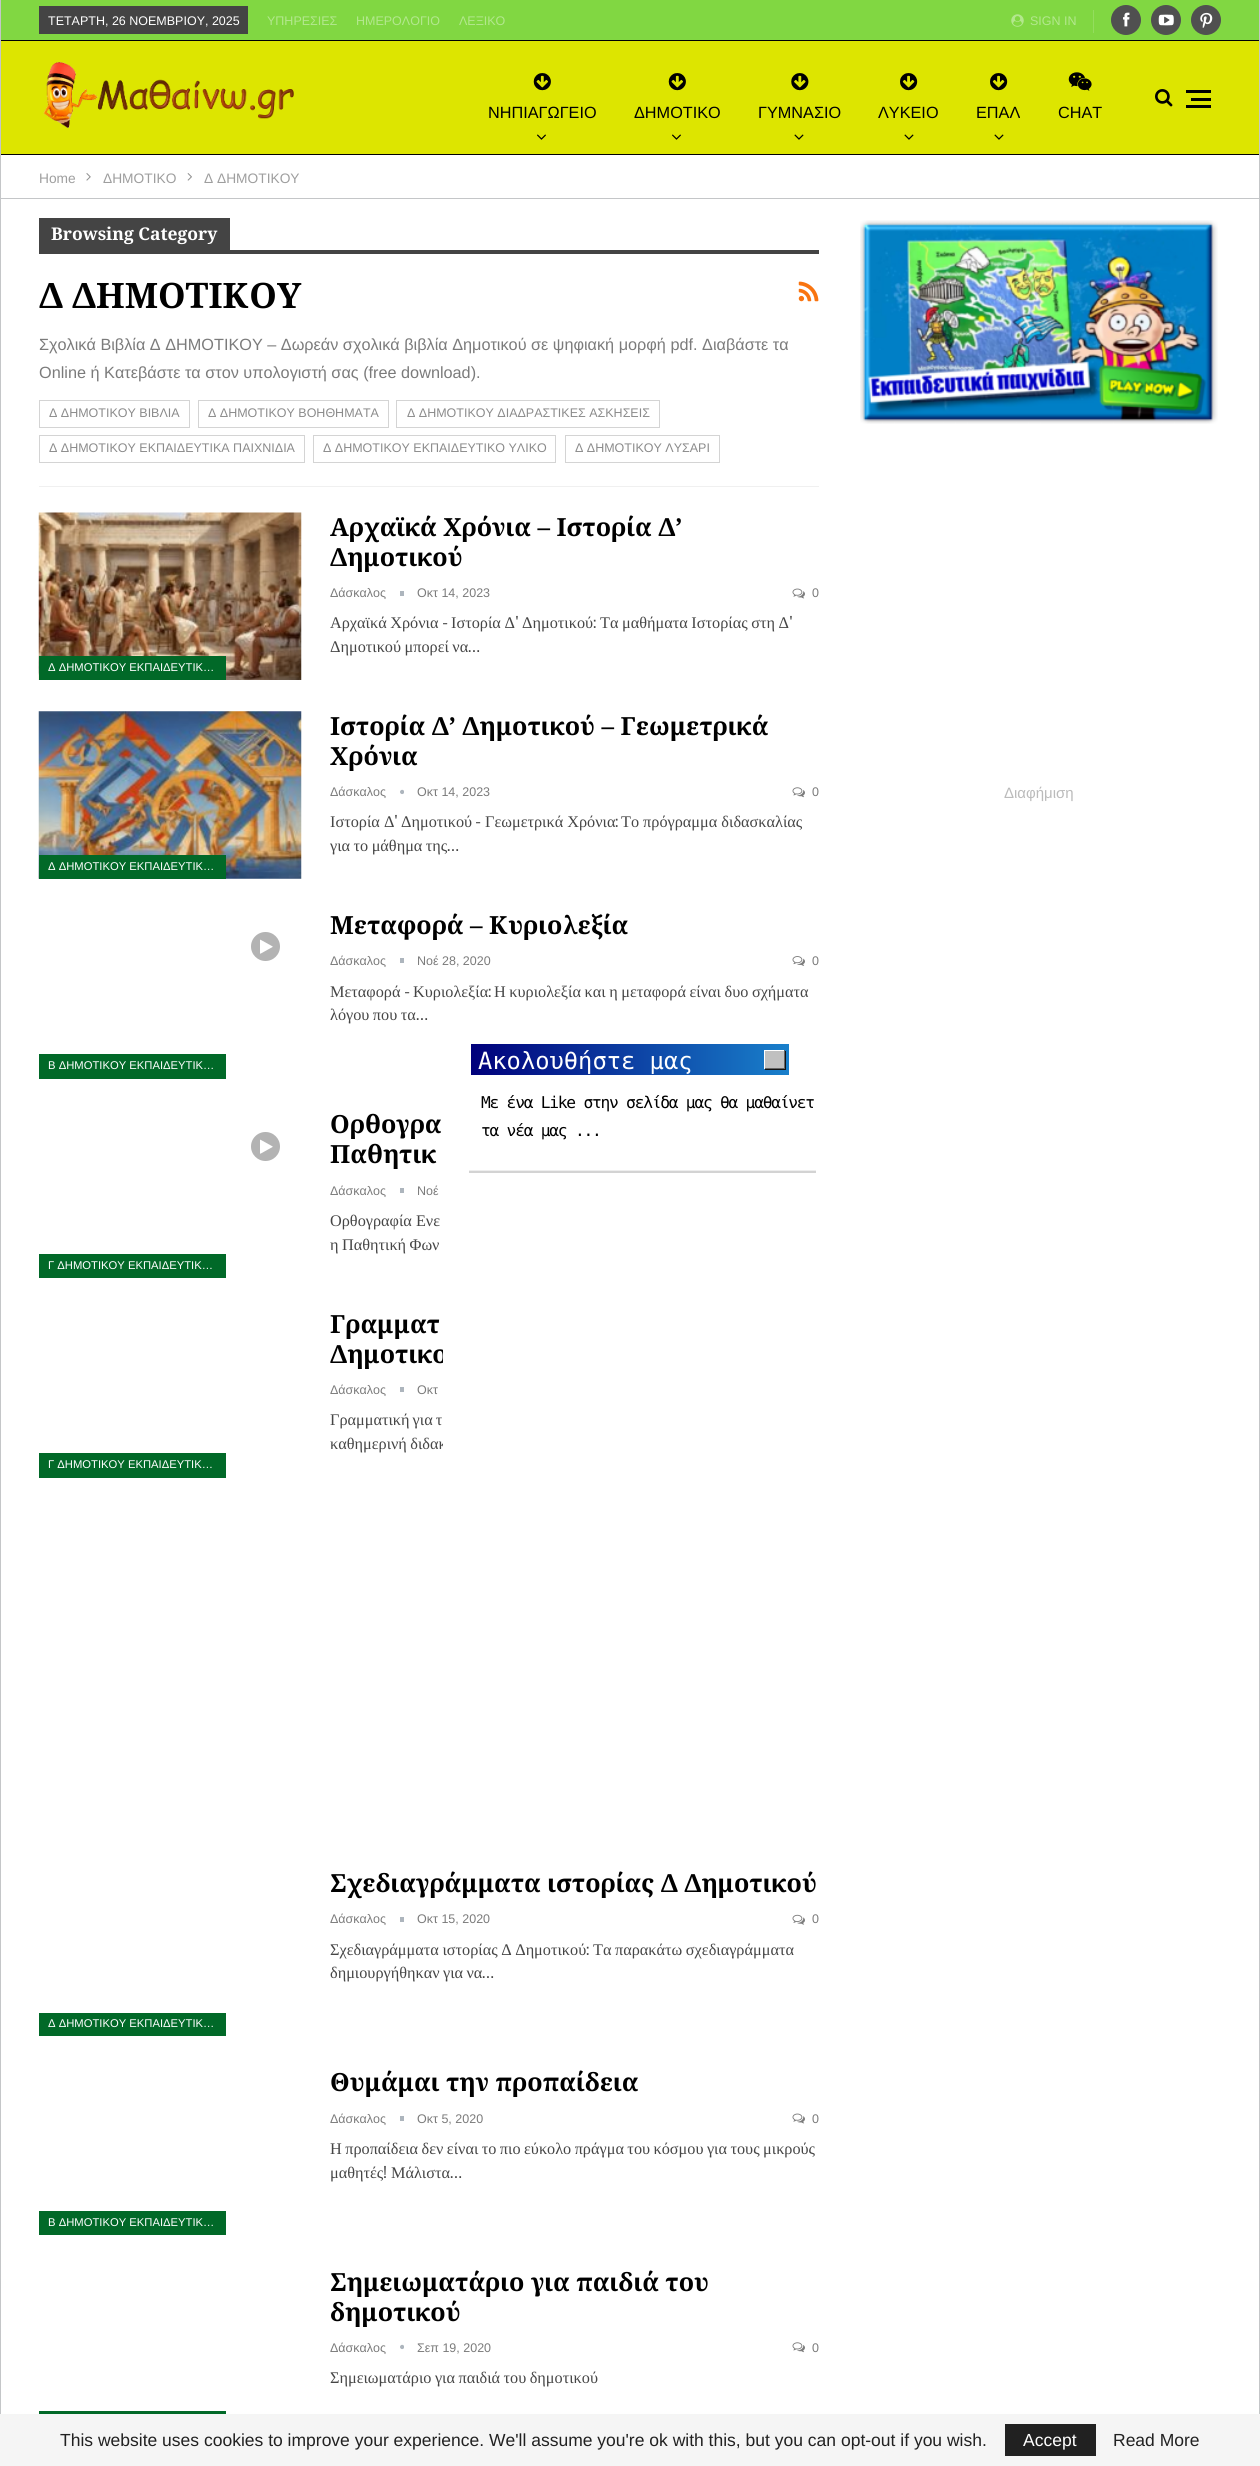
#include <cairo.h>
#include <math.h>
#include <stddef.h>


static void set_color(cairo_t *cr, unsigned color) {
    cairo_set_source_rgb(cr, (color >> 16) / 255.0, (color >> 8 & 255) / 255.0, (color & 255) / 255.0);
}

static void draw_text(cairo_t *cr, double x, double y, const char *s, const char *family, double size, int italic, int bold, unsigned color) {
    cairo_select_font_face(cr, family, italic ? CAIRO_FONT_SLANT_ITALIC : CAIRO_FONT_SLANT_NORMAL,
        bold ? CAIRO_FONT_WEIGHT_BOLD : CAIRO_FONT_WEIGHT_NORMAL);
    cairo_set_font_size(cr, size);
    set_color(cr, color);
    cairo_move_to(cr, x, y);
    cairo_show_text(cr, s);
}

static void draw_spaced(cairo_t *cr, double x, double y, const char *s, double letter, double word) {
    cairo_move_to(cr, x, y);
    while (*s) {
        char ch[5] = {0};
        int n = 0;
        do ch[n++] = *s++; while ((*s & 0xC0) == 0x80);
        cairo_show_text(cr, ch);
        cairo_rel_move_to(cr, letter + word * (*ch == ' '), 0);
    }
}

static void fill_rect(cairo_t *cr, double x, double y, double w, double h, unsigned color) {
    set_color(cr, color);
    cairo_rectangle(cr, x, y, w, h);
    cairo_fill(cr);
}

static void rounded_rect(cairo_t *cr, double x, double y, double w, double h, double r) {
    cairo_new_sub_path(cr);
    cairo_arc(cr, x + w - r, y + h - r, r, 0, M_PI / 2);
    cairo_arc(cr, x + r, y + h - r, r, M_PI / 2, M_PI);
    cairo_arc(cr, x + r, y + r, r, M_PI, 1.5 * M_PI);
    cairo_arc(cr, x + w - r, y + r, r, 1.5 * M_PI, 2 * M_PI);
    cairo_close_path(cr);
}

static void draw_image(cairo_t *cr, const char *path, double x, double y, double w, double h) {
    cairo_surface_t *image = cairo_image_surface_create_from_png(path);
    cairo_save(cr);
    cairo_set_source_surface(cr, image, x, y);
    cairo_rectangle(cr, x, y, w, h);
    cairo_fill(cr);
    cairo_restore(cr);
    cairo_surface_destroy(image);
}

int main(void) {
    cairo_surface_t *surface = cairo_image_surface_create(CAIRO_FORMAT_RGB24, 1260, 2466);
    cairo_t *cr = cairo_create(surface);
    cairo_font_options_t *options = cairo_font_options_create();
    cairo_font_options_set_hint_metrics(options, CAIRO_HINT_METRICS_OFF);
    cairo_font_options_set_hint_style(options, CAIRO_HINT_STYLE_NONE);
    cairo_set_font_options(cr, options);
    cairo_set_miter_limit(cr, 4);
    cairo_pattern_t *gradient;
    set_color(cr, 0xFFFFFF);
    cairo_paint(cr);
    fill_rect(cr, 1259, 0, 1, 2414, 0xC4C6C8);
    fill_rect(cr, 0, 0, 1, 2414, 0xC4C6C8);
    fill_rect(cr, 1, 41, 1258, 113, 0xDDE500);
    fill_rect(cr, 1, 154, 1258, 1, 0x000000);
    fill_rect(cr, 1, 0, 1258, 40, 0x81D742);
    fill_rect(cr, 1, 40, 1258, 1, 0x000000);
    fill_rect(cr, 39, 6, 209, 28, 0x444444);
    draw_text(cr, 48, 25, "ΤΕΤΑΡΤΗ, 26 ΝΟΕΜΒΡΙΟΥ, 2025", "Liberation Sans", 12.5, 0, 0, 0xFFFFFF);
    draw_text(cr, 267, 25, "ΥΠΗΡΕΣΙΕΣ", "Liberation Sans", 12.5, 0, 0, 0xB3E78E);
    draw_text(cr, 356, 25, "ΗΜΕΡΟΛΟΓΙΟ", "Liberation Sans", 12.5, 0, 0, 0xB3E78E);
    draw_text(cr, 459, 25, "ΛΕΞΙΚΟ", "Liberation Sans", 12.5, 0, 0, 0xB3E78E);
    draw_image(cr, "assets/img1.png", 1011, 14, 13, 13);
    draw_text(cr, 1030, 25, "SIGN IN", "Liberation Sans", 12.5, 0, 0, 0xB3E78E);
    fill_rect(cr, 1093, 10, 1, 23, 0x94DD5E);
    set_color(cr, 0x505050);
    cairo_new_path(cr);
    cairo_arc(cr, 1126, 20, 15, 0, 2 * M_PI);
    cairo_fill(cr);
    draw_image(cr, "assets/img2.png", 1123, 12, 7, 15);
    cairo_arc(cr, 1166, 20, 15, 0, 2 * M_PI);
    cairo_fill(cr);
    draw_image(cr, "assets/img3.png", 1158, 14, 16, 12);
    cairo_arc(cr, 1206, 20, 15, 0, 2 * M_PI);
    cairo_fill(cr);
    draw_image(cr, "assets/img4.png", 1200, 12, 13, 16);
    draw_image(cr, "assets/img5.png", 43, 62, 251, 66);
    draw_image(cr, "assets/img6.png", 1155, 89, 18, 18);
    fill_rect(cr, 1191, 98, 20, 3, 0x000000);
    fill_rect(cr, 1186, 90, 25, 3, 0x000000);
    fill_rect(cr, 1186, 105, 25, 3, 0x000000);
    draw_image(cr, "assets/img7.png", 533, 73, 18, 18);
    draw_text(cr, 488, 118, "ΝΗΠΙΑΓΩΓΕΙΟ", "Liberation Sans", 16.25, 0, 0, 0x000000);
    draw_image(cr, "assets/img8.png", 537, 134, 9, 6);
    draw_image(cr, "assets/img7.png", 668, 73, 18, 18);
    draw_text(cr, 634, 118, "ΔΗΜΟΤΙΚΟ", "Liberation Sans", 16.25, 0, 0, 0x000000);
    draw_image(cr, "assets/img8.png", 672, 134, 9, 6);
    draw_image(cr, "assets/img9.png", 791, 73, 18, 18);
    draw_text(cr, 758, 118, "ΓΥΜΝΑΣΙΟ", "Liberation Sans", 16.25, 0, 0, 0x000000);
    draw_image(cr, "assets/img10.png", 794, 134, 10, 6);
    draw_image(cr, "assets/img11.png", 900, 73, 18, 18);
    draw_text(cr, 878, 118, "ΛΥΚΕΙΟ", "Liberation Sans", 16.25, 0, 0, 0x000000);
    draw_image(cr, "assets/img10.png", 904, 134, 10, 6);
    draw_image(cr, "assets/img11.png", 990, 73, 18, 18);
    draw_text(cr, 976, 118, "ΕΠΑΛ", "Liberation Sans", 16.25, 0, 0, 0x000000);
    draw_image(cr, "assets/img10.png", 994, 134, 10, 6);
    draw_image(cr, "assets/img12.png", 1068, 72, 24, 19);
    draw_text(cr, 1058, 118, "CHAT", "Liberation Sans", 16.25, 0, 0, 0x000000);
    fill_rect(cr, 1, 198, 1258, 1, 0xC4C6C8);
    draw_text(cr, 39, 183, "Home", "Liberation Sans", 13.75, 0, 0, 0x9E9E9E);
    draw_image(cr, "assets/img13.png", 86, 173, 5, 8);
    draw_text(cr, 103, 183, "ΔΗΜΟΤΙΚΟ", "Liberation Sans", 13.75, 0, 0, 0x9E9E9E);
    draw_image(cr, "assets/img14.png", 187, 173, 5, 8);
    draw_text(cr, 204, 183, "Δ ΔΗΜΟΤΙΚΟΥ", "Liberation Sans", 13.75, 0, 0, 0x9E9E9E);
    fill_rect(cr, 39, 486, 780, 1, 0xF0F0F0);
    fill_rect(cr, 39, 218, 191, 32, 0x444444);
    draw_text(cr, 51, 240, "Browsing Category", "Noto Serif", 17.5, 0, 1, 0xFFFFFF);
    fill_rect(cr, 39, 250, 780, 4, 0x444444);
    draw_text(cr, 39, 308, "Δ ΔΗΜΟΤΙΚΟΥ", "Noto Serif", 35, 0, 1, 0x000000);
    draw_image(cr, "assets/img15.png", 798, 281, 21, 21);
    draw_text(cr, 39, 350, "Σχολικά Βιβλία Δ ΔΗΜΟΤΙΚΟΥ – Δωρεάν σχολικά βιβλία Δημοτικού σε ψηφιακή μορφή pdf. Διαβάστε τα", "Liberation Sans", 16.25, 0, 0, 0x7B7B7B);
    draw_text(cr, 39, 378, "Online ή Κατεβάστε τα στον υπολογιστή σας (free download).", "Liberation Sans", 16.25, 0, 0, 0x7B7B7B);
    cairo_rectangle(cr, 39.5, 400.5, 150, 27);
    set_color(cr, 0xD4D4D4);
    cairo_set_line_width(cr, 1);
    cairo_stroke(cr);
    draw_text(cr, 49, 417, "Δ ΔΗΜΟΤΙΚΟΥ ΒΙΒΛΙΑ", "Liberation Sans", 12.5, 0, 0, 0x8B8B8B);
    cairo_rectangle(cr, 198.5, 400.5, 190, 27);
    set_color(cr, 0xD4D4D4);
    cairo_stroke(cr);
    draw_text(cr, 208, 417, "Δ ΔΗΜΟΤΙΚΟΥ ΒΟΗΘΗΜΑΤΑ", "Liberation Sans", 12.5, 0, 0, 0x8B8B8B);
    cairo_rectangle(cr, 396.5, 400.5, 263, 27);
    set_color(cr, 0xD4D4D4);
    cairo_stroke(cr);
    draw_text(cr, 407, 417, "Δ ΔΗΜΟΤΙΚΟΥ ΔΙΑΔΡΑΣΤΙΚΕΣ ΑΣΚΗΣΕΙΣ", "Liberation Sans", 12.5, 0, 0, 0x8B8B8B);
    cairo_rectangle(cr, 39.5, 435.5, 265, 27);
    set_color(cr, 0xD4D4D4);
    cairo_stroke(cr);
    draw_text(cr, 49, 452, "Δ ΔΗΜΟΤΙΚΟΥ ΕΚΠΑΙΔΕΥΤΙΚΑ ΠΑΙΧΝΙΔΙΑ", "Liberation Sans", 12.5, 0, 0, 0x8B8B8B);
    cairo_rectangle(cr, 313.5, 435.5, 242, 27);
    set_color(cr, 0xD4D4D4);
    cairo_stroke(cr);
    draw_text(cr, 323, 452, "Δ ΔΗΜΟΤΙΚΟΥ ΕΚΠΑΙΔΕΥΤΙΚΟ ΥΛΙΚΟ", "Liberation Sans", 12.5, 0, 0, 0x8B8B8B);
    cairo_rectangle(cr, 565.5, 435.5, 154, 27);
    set_color(cr, 0xD4D4D4);
    cairo_stroke(cr);
    draw_text(cr, 575, 452, "Δ ΔΗΜΟΤΙΚΟΥ ΛΥΣΑΡΙ", "Liberation Sans", 12.5, 0, 0, 0x8B8B8B);
    draw_text(cr, 330, 536, "Αρχαϊκά Χρόνια – Ιστορία Δ’", "Noto Serif", 25, 0, 1, 0x000000);
    draw_text(cr, 330, 566, "Δημοτικού", "Noto Serif", 25, 0, 1, 0x000000);
    draw_text(cr, 330, 597, "Δάσκαλος", "Liberation Sans", 12.5, 0, 0, 0x7B7B7B);
    fill_rect(cr, 400, 591, 4, 5, 0xADB5BD);
    draw_text(cr, 417, 597, "Οκτ 14, 2023", "Liberation Sans", 12.5, 0, 0, 0x7B7B7B);
    draw_image(cr, "assets/img16.png", 792, 588, 13, 11);
    draw_text(cr, 812, 597, "0", "Liberation Sans", 12.5, 0, 0, 0x7B7B7B);
    cairo_select_font_face(cr, "Liberation Serif", CAIRO_FONT_SLANT_NORMAL, CAIRO_FONT_WEIGHT_NORMAL);
    cairo_set_font_size(cr, 16.25);
    set_color(cr, 0x464646);
    draw_spaced(cr, 330, 628, "Αρχαϊκά Χρόνια", 0, -0.5);
    draw_text(cr, 442, 628, "-", "Libre Franklin Thin", 16.25, 0, 0, 0x464646);
    cairo_select_font_face(cr, "Liberation Serif", CAIRO_FONT_SLANT_NORMAL, CAIRO_FONT_WEIGHT_NORMAL);
    draw_spaced(cr, 451, 628, "Ιστορία Δ", 0, -0.5);
    draw_text(cr, 515, 628, "'", "Libre Franklin Thin", 16.25, 0, 0, 0x464646);
    draw_text(cr, 522, 628, "Δημοτικού", "Liberation Serif", 16.25, 0, 0, 0x464646);
    draw_text(cr, 593, 628, ":", "Libre Franklin Thin", 16.25, 0, 0, 0x464646);
    cairo_select_font_face(cr, "Liberation Serif", CAIRO_FONT_SLANT_NORMAL, CAIRO_FONT_WEIGHT_NORMAL);
    draw_spaced(cr, 600, 628, "Τα μαθήματα Ιστορίας στη Δ", 0, -0.5);
    draw_text(cr, 789, 628, "'", "Libre Franklin Thin", 16.25, 0, 0, 0x464646);
    cairo_select_font_face(cr, "Liberation Serif", CAIRO_FONT_SLANT_NORMAL, CAIRO_FONT_WEIGHT_NORMAL);
    draw_spaced(cr, 330, 652, "Δημοτικού μπορεί να", 0, -0.6);
    draw_text(cr, 468, 652, "…", "Libre Franklin Thin", 16.25, 0, 0, 0x464646);
    draw_image(cr, "assets/img17.png", 38, 512, 264, 168);
    fill_rect(cr, 39, 656, 187, 24, 0x016928);
    draw_text(cr, 48, 671, "Δ ΔΗΜΟΤΙΚΟΥ ΕΚΠΑΙΔΕΥΤΙΚ…", "Liberation Sans", 11.25, 0, 0, 0xFFFFFF);
    draw_text(cr, 330, 735, "Ιστορία Δ’ Δημοτικού – Γεωμετρικά", "Noto Serif", 25, 0, 1, 0x000000);
    draw_text(cr, 330, 765, "Χρόνια", "Noto Serif", 25, 0, 1, 0x000000);
    draw_text(cr, 330, 796, "Δάσκαλος", "Liberation Sans", 12.5, 0, 0, 0x7B7B7B);
    draw_image(cr, "assets/img18.png", 400, 789, 4, 6);
    draw_text(cr, 417, 796, "Οκτ 14, 2023", "Liberation Sans", 12.5, 0, 0, 0x7B7B7B);
    draw_image(cr, "assets/img19.png", 792, 787, 13, 11);
    draw_text(cr, 812, 796, "0", "Liberation Sans", 12.5, 0, 0, 0x7B7B7B);
    draw_text(cr, 330, 827, "Ιστορία Δ", "Liberation Serif", 16.25, 0, 0, 0x464646);
    draw_text(cr, 394, 827, "'", "Libre Franklin Thin", 16.25, 0, 0, 0x464646);
    draw_text(cr, 401, 827, "Δημοτικού", "Liberation Serif", 16.25, 0, 0, 0x464646);
    draw_text(cr, 475, 827, "-", "Libre Franklin Thin", 16.25, 0, 0, 0x464646);
    draw_text(cr, 485, 827, "Γεωμετρικά Χρόνια", "Liberation Serif", 16.25, 0, 0, 0x464646);
    draw_text(cr, 615, 827, ":", "Libre Franklin Thin", 16.25, 0, 0, 0x464646);
    draw_text(cr, 621, 827, "Το πρόγραμμα διδασκαλίας", "Liberation Serif", 16.25, 0, 0, 0x464646);
    draw_spaced(cr, 330, 851, "για το μάθημα της", 0, -0.6);
    draw_text(cr, 447, 851, "…", "Libre Franklin Thin", 16.25, 0, 0, 0x464646);
    draw_image(cr, "assets/img20.png", 38, 711, 264, 168);
    fill_rect(cr, 39, 855, 187, 24, 0x016928);
    draw_text(cr, 48, 870, "Δ ΔΗΜΟΤΙΚΟΥ ΕΚΠΑΙΔΕΥΤΙΚ…", "Liberation Sans", 11.25, 0, 0, 0xFFFFFF);
    draw_text(cr, 330, 934, "Μεταφορά – Κυριολεξία", "Noto Serif", 25, 0, 1, 0x000000);
    draw_text(cr, 330, 965, "Δάσκαλος", "Liberation Sans", 12.5, 0, 0, 0x7B7B7B);
    fill_rect(cr, 400, 958, 4, 5, 0xADB5BD);
    draw_text(cr, 417, 965, "Νοέ 28, 2020", "Liberation Sans", 12.5, 0, 0, 0x7B7B7B);
    draw_image(cr, "assets/img21.png", 792, 956, 13, 10);
    draw_text(cr, 812, 965, "0", "Liberation Sans", 12.5, 0, 0, 0x7B7B7B);
    draw_text(cr, 330, 997, "Μεταφορά", "Liberation Serif", 16.25, 0, 0, 0x464646);
    draw_text(cr, 404, 997, "-", "Libre Franklin Thin", 16.25, 0, 0, 0x464646);
    draw_text(cr, 413, 997, "Κυριολεξία", "Liberation Serif", 16.25, 0, 0, 0x464646);
    draw_text(cr, 488, 997, ":", "Libre Franklin Thin", 16.25, 0, 0, 0x464646);
    cairo_select_font_face(cr, "Liberation Serif", CAIRO_FONT_SLANT_NORMAL, CAIRO_FONT_WEIGHT_NORMAL);
    draw_spaced(cr, 494, 997, "Η κυριολεξία και η μεταφορά είναι δυο σχήματα", 0, -0.5);
    draw_spaced(cr, 330, 1020, "λόγου που τα", 0, -0.6);
    draw_text(cr, 416, 1020, "…", "Libre Franklin Thin", 16.25, 0, 0, 0x464646);
    set_color(cr, 0xB3B3B3);
    cairo_new_path(cr);
    cairo_arc(cr, 265.5, 946.5, 16, 0, 2 * M_PI);
    cairo_fill_preserve(cr);
    set_color(cr, 0xFFFFFF);
    cairo_set_line_width(cr, 3);
    cairo_stroke(cr);
    draw_image(cr, "assets/img22.png", 260, 939, 13, 15);
    fill_rect(cr, 39, 1054, 187, 25, 0x016928);
    draw_text(cr, 48, 1069, "Β ΔΗΜΟΤΙΚΟΥ ΕΚΠΑΙΔΕΥΤΙΚ…", "Liberation Sans", 11.25, 0, 0, 0xFFFFFF);
    draw_text(cr, 330, 1133, "Ορθογρα", "Noto Serif", 25, 0, 1, 0x000000);
    draw_text(cr, 330, 1163, "Παθητικ", "Noto Serif", 25, 0, 1, 0x000000);
    draw_text(cr, 330, 1195, "Δάσκαλος", "Liberation Sans", 12.5, 0, 0, 0x7B7B7B);
    fill_rect(cr, 400, 1188, 4, 5, 0xADB5BD);
    draw_text(cr, 417, 1195, "Νοέ", "Liberation Sans", 12.5, 0, 0, 0x7B7B7B);
    draw_text(cr, 330, 1226, "Ορθογραφία Ενε", "Liberation Serif", 16.25, 0, 0, 0x464646);
    draw_spaced(cr, 330, 1250, "η Παθητική Φων", 0, -0.6);
    set_color(cr, 0xB3B3B3);
    cairo_new_path(cr);
    cairo_arc(cr, 265.5, 1146.5, 16, 0, 2 * M_PI);
    cairo_fill_preserve(cr);
    set_color(cr, 0xFFFFFF);
    cairo_stroke(cr);
    draw_image(cr, "assets/img22.png", 260, 1139, 13, 15);
    fill_rect(cr, 39, 1254, 187, 24, 0x016928);
    draw_text(cr, 48, 1269, "Γ ΔΗΜΟΤΙΚΟΥ ΕΚΠΑΙΔΕΥΤΙΚ…", "Liberation Sans", 11.25, 0, 0, 0xFFFFFF);
    draw_text(cr, 330, 1333, "Γραμματ", "Noto Serif", 25, 0, 1, 0x000000);
    draw_text(cr, 330, 1363, "Δημοτικο", "Noto Serif", 25, 0, 1, 0x000000);
    draw_text(cr, 330, 1394, "Δάσκαλος", "Liberation Sans", 12.5, 0, 0, 0x7B7B7B);
    fill_rect(cr, 400, 1387, 4, 5, 0xADB5BD);
    draw_text(cr, 417, 1394, "Οκτ", "Liberation Sans", 12.5, 0, 0, 0x7B7B7B);
    cairo_select_font_face(cr, "Liberation Serif", CAIRO_FONT_SLANT_NORMAL, CAIRO_FONT_WEIGHT_NORMAL);
    cairo_set_font_size(cr, 16.25);
    set_color(cr, 0x464646);
    draw_spaced(cr, 330, 1425, "Γραμματική για τ", 0, -1);
    draw_spaced(cr, 330, 1449, "καθημερινή διδακ", 0, -0.6);
    fill_rect(cr, 39, 1453, 187, 25, 0x016928);
    draw_text(cr, 48, 1468, "Γ ΔΗΜΟΤΙΚΟΥ ΕΚΠΑΙΔΕΥΤΙΚ…", "Liberation Sans", 11.25, 0, 0, 0xFFFFFF);
    draw_text(cr, 330, 1892, "Σχεδιαγράμματα ιστορίας Δ Δημοτικού", "Noto Serif", 25, 0, 1, 0x000000);
    draw_text(cr, 330, 1923, "Δάσκαλος", "Liberation Sans", 12.5, 0, 0, 0x7B7B7B);
    fill_rect(cr, 400, 1917, 4, 5, 0xADB5BD);
    draw_text(cr, 417, 1923, "Οκτ 15, 2020", "Liberation Sans", 12.5, 0, 0, 0x7B7B7B);
    draw_image(cr, "assets/img23.png", 792, 1914, 13, 11);
    draw_text(cr, 812, 1923, "0", "Liberation Sans", 12.5, 0, 0, 0x7B7B7B);
    cairo_select_font_face(cr, "Liberation Serif", CAIRO_FONT_SLANT_NORMAL, CAIRO_FONT_WEIGHT_NORMAL);
    cairo_set_font_size(cr, 16.25);
    set_color(cr, 0x464646);
    draw_spaced(cr, 330, 1955, "Σχεδιαγράμματα ιστορίας Δ Δημοτικού", 0, -0.5);
    draw_text(cr, 586, 1955, ":", "Libre Franklin Thin", 16.25, 0, 0, 0x464646);
    cairo_select_font_face(cr, "Liberation Serif", CAIRO_FONT_SLANT_NORMAL, CAIRO_FONT_WEIGHT_NORMAL);
    draw_spaced(cr, 593, 1955, "Τα παρακάτω σχεδιαγράμματα", 0, -0.5);
    draw_spaced(cr, 330, 1978, "δημιουργήθηκαν για να", 0, -0.6);
    draw_text(cr, 482, 1978, "…", "Libre Franklin Thin", 16.25, 0, 0, 0x464646);
    fill_rect(cr, 39, 2013, 187, 23, 0x016928);
    draw_text(cr, 48, 2027, "Δ ΔΗΜΟΤΙΚΟΥ ΕΚΠΑΙΔΕΥΤΙΚ…", "Liberation Sans", 11.25, 0, 0, 0xFFFFFF);
    draw_text(cr, 330, 2091, "Θυμάμαι την προπαίδεια", "Noto Serif", 25, 0, 1, 0x000000);
    draw_text(cr, 330, 2123, "Δάσκαλος", "Liberation Sans", 12.5, 0, 0, 0x7B7B7B);
    fill_rect(cr, 400, 2116, 4, 5, 0xADB5BD);
    draw_text(cr, 417, 2123, "Οκτ 5, 2020", "Liberation Sans", 12.5, 0, 0, 0x7B7B7B);
    draw_image(cr, "assets/img16.png", 792, 2113, 13, 11);
    draw_text(cr, 812, 2123, "0", "Liberation Sans", 12.5, 0, 0, 0x7B7B7B);
    cairo_select_font_face(cr, "Liberation Serif", CAIRO_FONT_SLANT_NORMAL, CAIRO_FONT_WEIGHT_NORMAL);
    cairo_set_font_size(cr, 16.25);
    set_color(cr, 0x464646);
    draw_spaced(cr, 330, 2154, "Η προπαίδεια δεν είναι το πιο εύκολο πράγμα του κόσμου για τους μικρούς", 0, -0.6);
    draw_text(cr, 330, 2178, "μαθητές", "Liberation Serif", 16.25, 0, 0, 0x464646);
    draw_text(cr, 383, 2178, "!", "Libre Franklin Thin", 16.25, 0, 0, 0x464646);
    draw_text(cr, 391, 2178, "Μάλιστα", "Liberation Serif", 16.25, 0, 0, 0x464646);
    draw_text(cr, 450, 2178, "…", "Libre Franklin Thin", 16.25, 0, 0, 0x464646);
    fill_rect(cr, 39, 2211, 187, 24, 0x016928);
    draw_text(cr, 48, 2226, "Β ΔΗΜΟΤΙΚΟΥ ΕΚΠΑΙΔΕΥΤΙΚ…", "Liberation Sans", 11.25, 0, 0, 0xFFFFFF);
    draw_text(cr, 330, 2291, "Σημειωματάριο για παιδιά του", "Noto Serif", 25, 0, 1, 0x000000);
    draw_text(cr, 330, 2321, "δημοτικού", "Noto Serif", 25, 0, 1, 0x000000);
    draw_text(cr, 330, 2352, "Δάσκαλος", "Liberation Sans", 12.5, 0, 0, 0x7B7B7B);
    draw_image(cr, "assets/img18.png", 400, 2344, 4, 6);
    draw_text(cr, 417, 2352, "Σεπ 19, 2020", "Liberation Sans", 12.5, 0, 0, 0x7B7B7B);
    draw_image(cr, "assets/img19.png", 792, 2342, 13, 11);
    draw_text(cr, 812, 2352, "0", "Liberation Sans", 12.5, 0, 0, 0x7B7B7B);
    cairo_select_font_face(cr, "Liberation Serif", CAIRO_FONT_SLANT_NORMAL, CAIRO_FONT_WEIGHT_NORMAL);
    cairo_set_font_size(cr, 16.25);
    set_color(cr, 0x464646);
    draw_spaced(cr, 330, 2383, "Σημειωματάριο για παιδιά του δημοτικού", 0, -0.6);
    fill_rect(cr, 39, 2411, 187, 3, 0x016928);
    draw_image(cr, "assets/img24.png", 860, 220, 358, 204);
    draw_text(cr, 1004, 798, "Διαφήμιση", "Liberation Sans", 15, 0, 0, 0xBBBBBB);
    set_color(cr, 0xFFFFFF);
    rounded_rect(cr, 443, 1015, 375, 438, 5);
    cairo_fill(cr);
    gradient = cairo_pattern_create_linear(471, 1059, 789, 1059);
    cairo_pattern_add_color_stop_rgba(gradient, 0, 0, 0, 0.482, 1);
    cairo_pattern_add_color_stop_rgba(gradient, 1, 0.098, 0.502, 0.796, 1);
    cairo_set_source(cr, gradient);
    cairo_pattern_destroy(gradient);
    cairo_rectangle(cr, 471, 1044, 318, 31);
    cairo_fill(cr);
    draw_text(cr, 478, 1069, "Ακολουθήστε μας", "DejaVu Sans Mono", 23.75, 0, 0, 0xFFFFFF);
    set_color(cr, 0x111111);
    cairo_new_path(cr);
    cairo_move_to(cr, 765, 1069);
    cairo_line_to(cr, 765, 1070);
    cairo_line_to(cr, 786, 1070);
    cairo_line_to(cr, 786, 1051);
    cairo_line_to(cr, 785, 1051);
    cairo_line_to(cr, 785, 1069);
    cairo_close_path(cr);
    cairo_fill(cr);
    fill_rect(cr, 765, 1051, 19, 17, 0xC0C0C0);
    fill_rect(cr, 764, 1050, 21, 1, 0xFFFFFF);
    fill_rect(cr, 784, 1050, 1, 19, 0x666666);
    fill_rect(cr, 764, 1068, 21, 1, 0x666666);
    fill_rect(cr, 764, 1050, 1, 19, 0xFFFFFF);
    cairo_set_font_size(cr, 16.25);
    set_color(cr, 0x000000);
    draw_spaced(cr, 481, 1108, "Με ένα Like στην σελίδα μας θα μαθαίνετ", -1.25, 0);
    draw_spaced(cr, 481, 1136, "τα νέα μας ...", -1.25, 0);
    fill_rect(cr, 469, 1171, 347, 2, 0xD3D3D3);
    fill_rect(cr, 469, 1170, 347, 1, 0xEEEEEE);
    fill_rect(cr, 0, 2414, 1260, 52, 0xF5F5F5);
    draw_text(cr, 60, 2446, "This website uses cookies to improve your experience. We'll assume you're ok with this, but you can opt-out if you wish.", "Liberation Sans", 17.5, 0, 0, 0x212121);
    fill_rect(cr, 1005, 2424, 91, 32, 0x212121);
    draw_text(cr, 1023, 2446, "Accept", "Liberation Sans", 17.5, 0, 0, 0xFFFFFF);
    draw_text(cr, 1113, 2446, "Read More", "Liberation Sans", 17.5, 0, 0, 0x212121);
    cairo_surface_write_to_png(surface, "output.png");
    cairo_font_options_destroy(options);
    cairo_destroy(cr);
    cairo_surface_destroy(surface);
    return 0;
}
